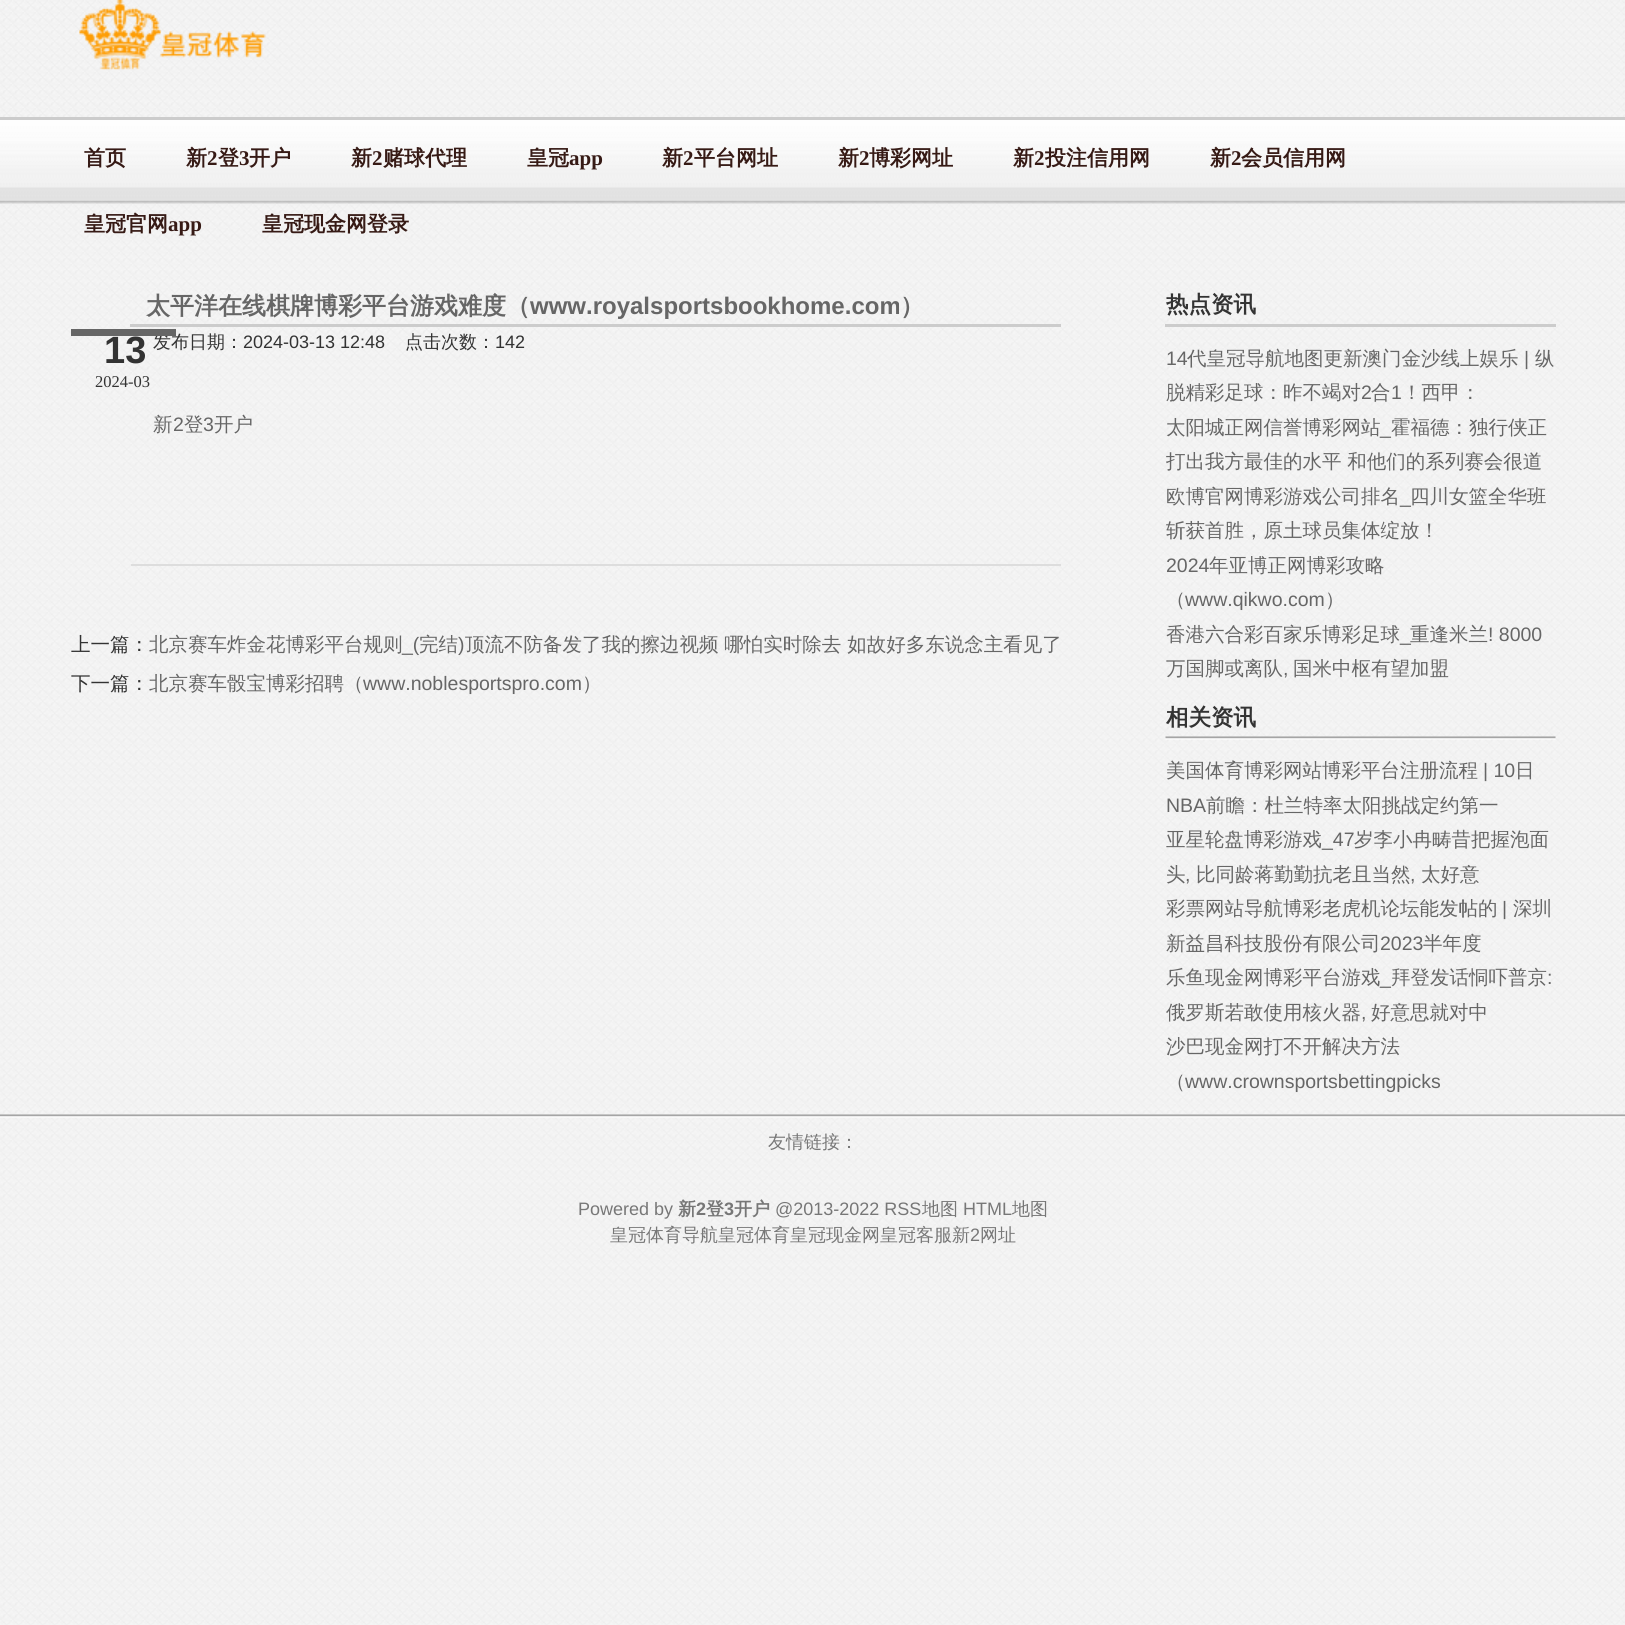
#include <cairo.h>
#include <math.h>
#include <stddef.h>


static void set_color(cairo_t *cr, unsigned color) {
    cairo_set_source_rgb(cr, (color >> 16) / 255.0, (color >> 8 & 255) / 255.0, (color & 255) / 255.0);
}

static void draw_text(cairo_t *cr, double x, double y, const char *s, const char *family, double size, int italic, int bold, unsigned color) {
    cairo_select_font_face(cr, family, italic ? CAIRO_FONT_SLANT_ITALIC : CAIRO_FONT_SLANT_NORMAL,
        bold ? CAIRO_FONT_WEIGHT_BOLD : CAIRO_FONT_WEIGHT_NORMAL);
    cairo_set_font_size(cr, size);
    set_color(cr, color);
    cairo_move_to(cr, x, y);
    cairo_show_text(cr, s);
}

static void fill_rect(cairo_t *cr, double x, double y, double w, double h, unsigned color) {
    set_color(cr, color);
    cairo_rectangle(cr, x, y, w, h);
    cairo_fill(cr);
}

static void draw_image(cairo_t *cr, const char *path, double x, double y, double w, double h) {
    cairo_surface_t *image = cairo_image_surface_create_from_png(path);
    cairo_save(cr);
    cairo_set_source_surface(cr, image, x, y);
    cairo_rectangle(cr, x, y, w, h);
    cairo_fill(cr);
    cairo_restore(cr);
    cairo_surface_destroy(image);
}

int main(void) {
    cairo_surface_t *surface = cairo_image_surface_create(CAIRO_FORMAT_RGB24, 1625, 1625);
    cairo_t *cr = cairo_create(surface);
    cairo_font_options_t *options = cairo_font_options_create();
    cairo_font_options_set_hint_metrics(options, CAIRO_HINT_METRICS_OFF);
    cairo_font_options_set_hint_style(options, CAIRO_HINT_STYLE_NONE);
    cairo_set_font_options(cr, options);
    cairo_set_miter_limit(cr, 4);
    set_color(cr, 0xFAFAFA);
    cairo_paint(cr);
    draw_image(cr, "assets/img1.png", 0, 0, 1625, 1625);
    fill_rect(cr, 0, 117, 1625, 3, 0xCCCCCC);
    draw_image(cr, "assets/img2.png", 79, 0, 187, 70);
    draw_image(cr, "assets/img3.png", 0, 120, 1625, 84);
    draw_text(cr, 84, 165, "首页", "WenQuanYi Zen Hei", 21, 0, 1, 0x361A15);
    draw_text(cr, 186, 165, "新", "WenQuanYi Zen Hei", 21, 0, 1, 0x361A15);
    draw_text(cr, 207, 165, "2", "Liberation Serif", 21, 0, 1, 0x361A15);
    draw_text(cr, 218, 165, "登", "WenQuanYi Zen Hei", 21, 0, 1, 0x361A15);
    draw_text(cr, 239, 165, "3", "Liberation Serif", 21, 0, 1, 0x361A15);
    draw_text(cr, 249, 165, "开户", "WenQuanYi Zen Hei", 21, 0, 1, 0x361A15);
    draw_text(cr, 351, 165, "新", "WenQuanYi Zen Hei", 21, 0, 1, 0x361A15);
    draw_text(cr, 372, 165, "2", "Liberation Serif", 21, 0, 1, 0x361A15);
    draw_text(cr, 383, 165, "赌球代理", "WenQuanYi Zen Hei", 21, 0, 1, 0x361A15);
    draw_text(cr, 527, 165, "皇冠", "WenQuanYi Zen Hei", 21, 0, 1, 0x361A15);
    draw_text(cr, 569, 165, "app", "Liberation Serif", 21, 0, 1, 0x361A15);
    draw_text(cr, 662, 165, "新", "WenQuanYi Zen Hei", 21, 0, 1, 0x361A15);
    draw_text(cr, 683, 165, "2", "Liberation Serif", 21, 0, 1, 0x361A15);
    draw_text(cr, 694, 165, "平台网址", "WenQuanYi Zen Hei", 21, 0, 1, 0x361A15);
    draw_text(cr, 838, 165, "新", "WenQuanYi Zen Hei", 21, 0, 1, 0x361A15);
    draw_text(cr, 859, 165, "2", "Liberation Serif", 21, 0, 1, 0x361A15);
    draw_text(cr, 869, 165, "博彩网址", "WenQuanYi Zen Hei", 21, 0, 1, 0x361A15);
    draw_text(cr, 1013, 165, "新", "WenQuanYi Zen Hei", 21, 0, 1, 0x361A15);
    draw_text(cr, 1034, 165, "2", "Liberation Serif", 21, 0, 1, 0x361A15);
    draw_text(cr, 1045, 165, "投注信用网", "WenQuanYi Zen Hei", 21, 0, 1, 0x361A15);
    draw_text(cr, 1210, 165, "新", "WenQuanYi Zen Hei", 21, 0, 1, 0x361A15);
    draw_text(cr, 1231, 165, "2", "Liberation Serif", 21, 0, 1, 0x361A15);
    draw_text(cr, 1241, 165, "会员信用网", "WenQuanYi Zen Hei", 21, 0, 1, 0x361A15);
    draw_text(cr, 84, 231, "皇冠官网", "WenQuanYi Zen Hei", 21, 0, 1, 0x361A15);
    draw_text(cr, 168, 231, "app", "Liberation Serif", 21, 0, 1, 0x361A15);
    draw_text(cr, 262, 231, "皇冠现金网登录", "WenQuanYi Zen Hei", 21, 0, 1, 0x361A15);
    draw_text(cr, 153, 348, "发布日期：", "WenQuanYi Zen Hei Medium", 18, 0, 0, 0x333333);
    fill_rect(cr, 71, 329, 105, 7, 0x666666);
    draw_text(cr, 104, 363, "13", "Liberation Sans", 38, 0, 1, 0x333333);
    draw_text(cr, 95, 387, "2024-03", "Liberation Serif", 16.5, 0, 0, 0x333333);
    fill_rect(cr, 131, 564, 930, 2, 0xDDDDDD);
    fill_rect(cr, 130, 324, 931, 3, 0xCCCCCC);
    draw_text(cr, 146, 314, "太平洋在线棋牌博彩平台游戏难度（", "WenQuanYi Zen Hei", 24, 0, 1, 0x666666);
    draw_text(cr, 530, 314, "www.royalsportsbookhome.com", "Liberation Sans", 24, 0, 1, 0x666666);
    draw_text(cr, 900, 314, "）", "WenQuanYi Zen Hei", 24, 0, 1, 0x666666);
    draw_text(cr, 243, 348, "2024-03-13 12:48", "Liberation Sans", 18, 0, 0, 0x333333);
    draw_text(cr, 405, 348, "点击次数：", "WenQuanYi Zen Hei Medium", 18, 0, 0, 0x333333);
    draw_text(cr, 495, 348, "142", "Liberation Sans", 18, 0, 0, 0x333333);
    draw_text(cr, 153, 431, "新", "WenQuanYi Zen Hei Medium", 19.5, 0, 0, 0x666666);
    draw_text(cr, 173, 431, "2", "Liberation Sans", 19.5, 0, 0, 0x666666);
    draw_text(cr, 184, 431, "登", "WenQuanYi Zen Hei Medium", 19.5, 0, 0, 0x666666);
    draw_text(cr, 203, 431, "3", "Liberation Sans", 19.5, 0, 0, 0x666666);
    draw_text(cr, 214, 431, "开户", "WenQuanYi Zen Hei Medium", 19.5, 0, 0, 0x666666);
    draw_text(cr, 71, 651, "上一篇：", "WenQuanYi Zen Hei Medium", 19.5, 0, 0, 0x333333);
    draw_text(cr, 149, 651, "北京赛车炸金花博彩平台规则", "WenQuanYi Zen Hei Medium", 19.5, 0, 0, 0x666666);
    draw_text(cr, 402, 651, "_(", "Liberation Sans", 19.5, 0, 0, 0x666666);
    draw_text(cr, 419, 651, "完结", "WenQuanYi Zen Hei Medium", 19.5, 0, 0, 0x666666);
    draw_text(cr, 458, 651, ")", "Liberation Sans", 19.5, 0, 0, 0x666666);
    draw_text(cr, 465, 651, "顶流不防备发了我的擦边视频 哪怕实时除去 如故好多东说念主看见了", "WenQuanYi Zen Hei Medium", 19.5, 0, 0, 0x666666);
    draw_text(cr, 71, 690, "下一篇：", "WenQuanYi Zen Hei Medium", 19.5, 0, 0, 0x333333);
    draw_text(cr, 149, 690, "北京赛车骰宝博彩招聘（", "WenQuanYi Zen Hei Medium", 19.5, 0, 0, 0x666666);
    draw_text(cr, 363, 690, "www.noblesportspro.com", "Liberation Sans", 19.5, 0, 0, 0x666666);
    draw_text(cr, 582, 690, "）", "WenQuanYi Zen Hei Medium", 19.5, 0, 0, 0x666666);
    fill_rect(cr, 1165, 324, 391, 3, 0xCCCCCC);
    draw_text(cr, 1166, 312, "热点资讯", "WenQuanYi Zen Hei", 22.5, 0, 1, 0x333333);
    draw_text(cr, 1166, 365, "14", "Liberation Sans", 19.5, 0, 0, 0x666666);
    draw_text(cr, 1187, 365, "代皇冠导航地图更新澳门金沙线上娱乐", "WenQuanYi Zen Hei Medium", 19.5, 0, 0, 0x666666);
    draw_text(cr, 1524, 365, "|", "Liberation Sans", 19.5, 0, 0, 0x666666);
    draw_text(cr, 1535, 365, "纵", "WenQuanYi Zen Hei Medium", 19.5, 0, 0, 0x666666);
    draw_text(cr, 1166, 399, "脱精彩足球：昨不竭对", "WenQuanYi Zen Hei Medium", 19.5, 0, 0, 0x666666);
    draw_text(cr, 1361, 399, "2", "Liberation Sans", 19.5, 0, 0, 0x666666);
    draw_text(cr, 1371, 399, "合", "WenQuanYi Zen Hei Medium", 19.5, 0, 0, 0x666666);
    draw_text(cr, 1391, 399, "1", "Liberation Sans", 19.5, 0, 0, 0x666666);
    draw_text(cr, 1402, 399, "！西甲：", "WenQuanYi Zen Hei Medium", 19.5, 0, 0, 0x666666);
    draw_text(cr, 1166, 434, "太阳城正网信誉博彩网站", "WenQuanYi Zen Hei Medium", 19.5, 0, 0, 0x666666);
    draw_text(cr, 1380, 434, "_", "Liberation Sans", 19.5, 0, 0, 0x666666);
    draw_text(cr, 1391, 434, "霍福德：独行侠正", "WenQuanYi Zen Hei Medium", 19.5, 0, 0, 0x666666);
    cairo_save(cr);
    cairo_rectangle(cr, 1166, 339, 390, 348);
    cairo_clip(cr);
    draw_text(cr, 1166, 468, "打出我方最佳的水平 和他们的系列赛会很道", "WenQuanYi Zen Hei Medium", 19.5, 0, 0, 0x666666);
    cairo_restore(cr);
    draw_text(cr, 1166, 503, "欧博官网博彩游戏公司排名", "WenQuanYi Zen Hei Medium", 19.5, 0, 0, 0x666666);
    draw_text(cr, 1400, 503, "_", "Liberation Sans", 19.5, 0, 0, 0x666666);
    draw_text(cr, 1410, 503, "四川女篮全华班", "WenQuanYi Zen Hei Medium", 19.5, 0, 0, 0x666666);
    draw_text(cr, 1166, 537, "斩获首胜，原土球员集体绽放！", "WenQuanYi Zen Hei Medium", 19.5, 0, 0, 0x666666);
    draw_text(cr, 1166, 572, "2024", "Liberation Sans", 19.5, 0, 0, 0x666666);
    draw_text(cr, 1209, 572, "年亚博正网博彩攻略", "WenQuanYi Zen Hei Medium", 19.5, 0, 0, 0x666666);
    draw_text(cr, 1166, 606, "（", "WenQuanYi Zen Hei Medium", 19.5, 0, 0, 0x666666);
    draw_text(cr, 1185, 606, "www.qikwo.com", "Liberation Sans", 19.5, 0, 0, 0x666666);
    draw_text(cr, 1325, 606, "）", "WenQuanYi Zen Hei Medium", 19.5, 0, 0, 0x666666);
    draw_text(cr, 1166, 641, "香港六合彩百家乐博彩足球", "WenQuanYi Zen Hei Medium", 19.5, 0, 0, 0x666666);
    draw_text(cr, 1400, 641, "_", "Liberation Sans", 19.5, 0, 0, 0x666666);
    draw_text(cr, 1410, 641, "重逢米兰", "WenQuanYi Zen Hei Medium", 19.5, 0, 0, 0x666666);
    draw_text(cr, 1488, 641, "! 8000", "Liberation Sans", 19.5, 0, 0, 0x666666);
    draw_text(cr, 1166, 675, "万国脚或离队", "WenQuanYi Zen Hei Medium", 19.5, 0, 0, 0x666666);
    draw_text(cr, 1283, 675, ",", "Liberation Sans", 19.5, 0, 0, 0x666666);
    draw_text(cr, 1293, 675, "国米中枢有望加盟", "WenQuanYi Zen Hei Medium", 19.5, 0, 0, 0x666666);
    draw_image(cr, "assets/img4.png", 1165, 736, 391, 4);
    draw_text(cr, 1166, 725, "相关资讯", "WenQuanYi Zen Hei", 22.5, 0, 1, 0x333333);
    draw_text(cr, 1166, 777, "美国体育博彩网站博彩平台注册流程", "WenQuanYi Zen Hei Medium", 19.5, 0, 0, 0x666666);
    draw_text(cr, 1483, 777, "| 10", "Liberation Sans", 19.5, 0, 0, 0x666666);
    draw_text(cr, 1515, 777, "日", "WenQuanYi Zen Hei Medium", 19.5, 0, 0, 0x666666);
    draw_text(cr, 1166, 812, "NBA", "Liberation Sans", 19.5, 0, 0, 0x666666);
    draw_text(cr, 1206, 812, "前瞻：杜兰特率太阳挑战定约第一", "WenQuanYi Zen Hei Medium", 19.5, 0, 0, 0x666666);
    draw_text(cr, 1166, 846, "亚星轮盘博彩游戏", "WenQuanYi Zen Hei Medium", 19.5, 0, 0, 0x666666);
    draw_text(cr, 1322, 846, "_47", "Liberation Sans", 19.5, 0, 0, 0x666666);
    draw_text(cr, 1354, 846, "岁李小冉畴昔把握泡面", "WenQuanYi Zen Hei Medium", 19.5, 0, 0, 0x666666);
    draw_text(cr, 1166, 881, "头", "WenQuanYi Zen Hei Medium", 19.5, 0, 0, 0x666666);
    draw_text(cr, 1185, 881, ",", "Liberation Sans", 19.5, 0, 0, 0x666666);
    draw_text(cr, 1196, 881, "比同龄蒋勤勤抗老且当然", "WenQuanYi Zen Hei Medium", 19.5, 0, 0, 0x666666);
    draw_text(cr, 1410, 881, ",", "Liberation Sans", 19.5, 0, 0, 0x666666);
    draw_text(cr, 1421, 881, "太好意", "WenQuanYi Zen Hei Medium", 19.5, 0, 0, 0x666666);
    draw_text(cr, 1166, 915, "彩票网站导航博彩老虎机论坛能发帖的", "WenQuanYi Zen Hei Medium", 19.5, 0, 0, 0x666666);
    draw_text(cr, 1502, 915, "|", "Liberation Sans", 19.5, 0, 0, 0x666666);
    draw_text(cr, 1513, 915, "深圳", "WenQuanYi Zen Hei Medium", 19.5, 0, 0, 0x666666);
    draw_text(cr, 1166, 950, "新益昌科技股份有限公司", "WenQuanYi Zen Hei Medium", 19.5, 0, 0, 0x666666);
    draw_text(cr, 1380, 950, "2023", "Liberation Sans", 19.5, 0, 0, 0x666666);
    draw_text(cr, 1423, 950, "半年度", "WenQuanYi Zen Hei Medium", 19.5, 0, 0, 0x666666);
    draw_text(cr, 1166, 984, "乐鱼现金网博彩平台游戏", "WenQuanYi Zen Hei Medium", 19.5, 0, 0, 0x666666);
    draw_text(cr, 1380, 984, "_", "Liberation Sans", 19.5, 0, 0, 0x666666);
    draw_text(cr, 1391, 984, "拜登发话恫吓普京", "WenQuanYi Zen Hei Medium", 19.5, 0, 0, 0x666666);
    draw_text(cr, 1547, 984, ":", "Liberation Sans", 19.5, 0, 0, 0x666666);
    draw_text(cr, 1166, 1019, "俄罗斯若敢使用核火器", "WenQuanYi Zen Hei Medium", 19.5, 0, 0, 0x666666);
    draw_text(cr, 1361, 1019, ",", "Liberation Sans", 19.5, 0, 0, 0x666666);
    draw_text(cr, 1371, 1019, "好意思就对中", "WenQuanYi Zen Hei Medium", 19.5, 0, 0, 0x666666);
    draw_text(cr, 1166, 1053, "沙巴现金网打不开解决方法", "WenQuanYi Zen Hei Medium", 19.5, 0, 0, 0x666666);
    draw_text(cr, 1166, 1088, "（", "WenQuanYi Zen Hei Medium", 19.5, 0, 0, 0x666666);
    draw_text(cr, 1185, 1088, "www.crownsportsbettingpicks", "Liberation Sans", 19.5, 0, 0, 0x666666);
    draw_image(cr, "assets/img5.png", 0, 1114, 1625, 4);
    draw_text(cr, 768, 1148, "友情链接：", "WenQuanYi Zen Hei Medium", 18, 0, 0, 0x777777);
    draw_text(cr, 578, 1215, "Powered by", "Liberation Sans", 18, 0, 0, 0x777777);
    draw_text(cr, 678, 1215, "新", "WenQuanYi Zen Hei", 18, 0, 1, 0x777777);
    draw_text(cr, 696, 1215, "2", "Liberation Sans", 18, 0, 1, 0x777777);
    draw_text(cr, 706, 1215, "登", "WenQuanYi Zen Hei", 18, 0, 1, 0x777777);
    draw_text(cr, 724, 1215, "3", "Liberation Sans", 18, 0, 1, 0x777777);
    draw_text(cr, 734, 1215, "开户", "WenQuanYi Zen Hei", 18, 0, 1, 0x777777);
    draw_text(cr, 775, 1215, "@2013-2022 RSS", "Liberation Sans", 18, 0, 0, 0x777777);
    draw_text(cr, 922, 1215, "地图", "WenQuanYi Zen Hei Medium", 18, 0, 0, 0x777777);
    draw_text(cr, 963, 1215, "HTML", "Liberation Sans", 18, 0, 0, 0x777777);
    draw_text(cr, 1012, 1215, "地图", "WenQuanYi Zen Hei Medium", 18, 0, 0, 0x777777);
    draw_text(cr, 610, 1241, "皇冠体育导航皇冠体育皇冠现金网皇冠客服新", "WenQuanYi Zen Hei Medium", 18, 0, 0, 0x777777);
    draw_text(cr, 970, 1241, "2", "Liberation Sans", 18, 0, 0, 0x777777);
    draw_text(cr, 980, 1241, "网址", "WenQuanYi Zen Hei Medium", 18, 0, 0, 0x777777);
    cairo_surface_write_to_png(surface, "output.png");
    cairo_font_options_destroy(options);
    cairo_destroy(cr);
    cairo_surface_destroy(surface);
    return 0;
}
